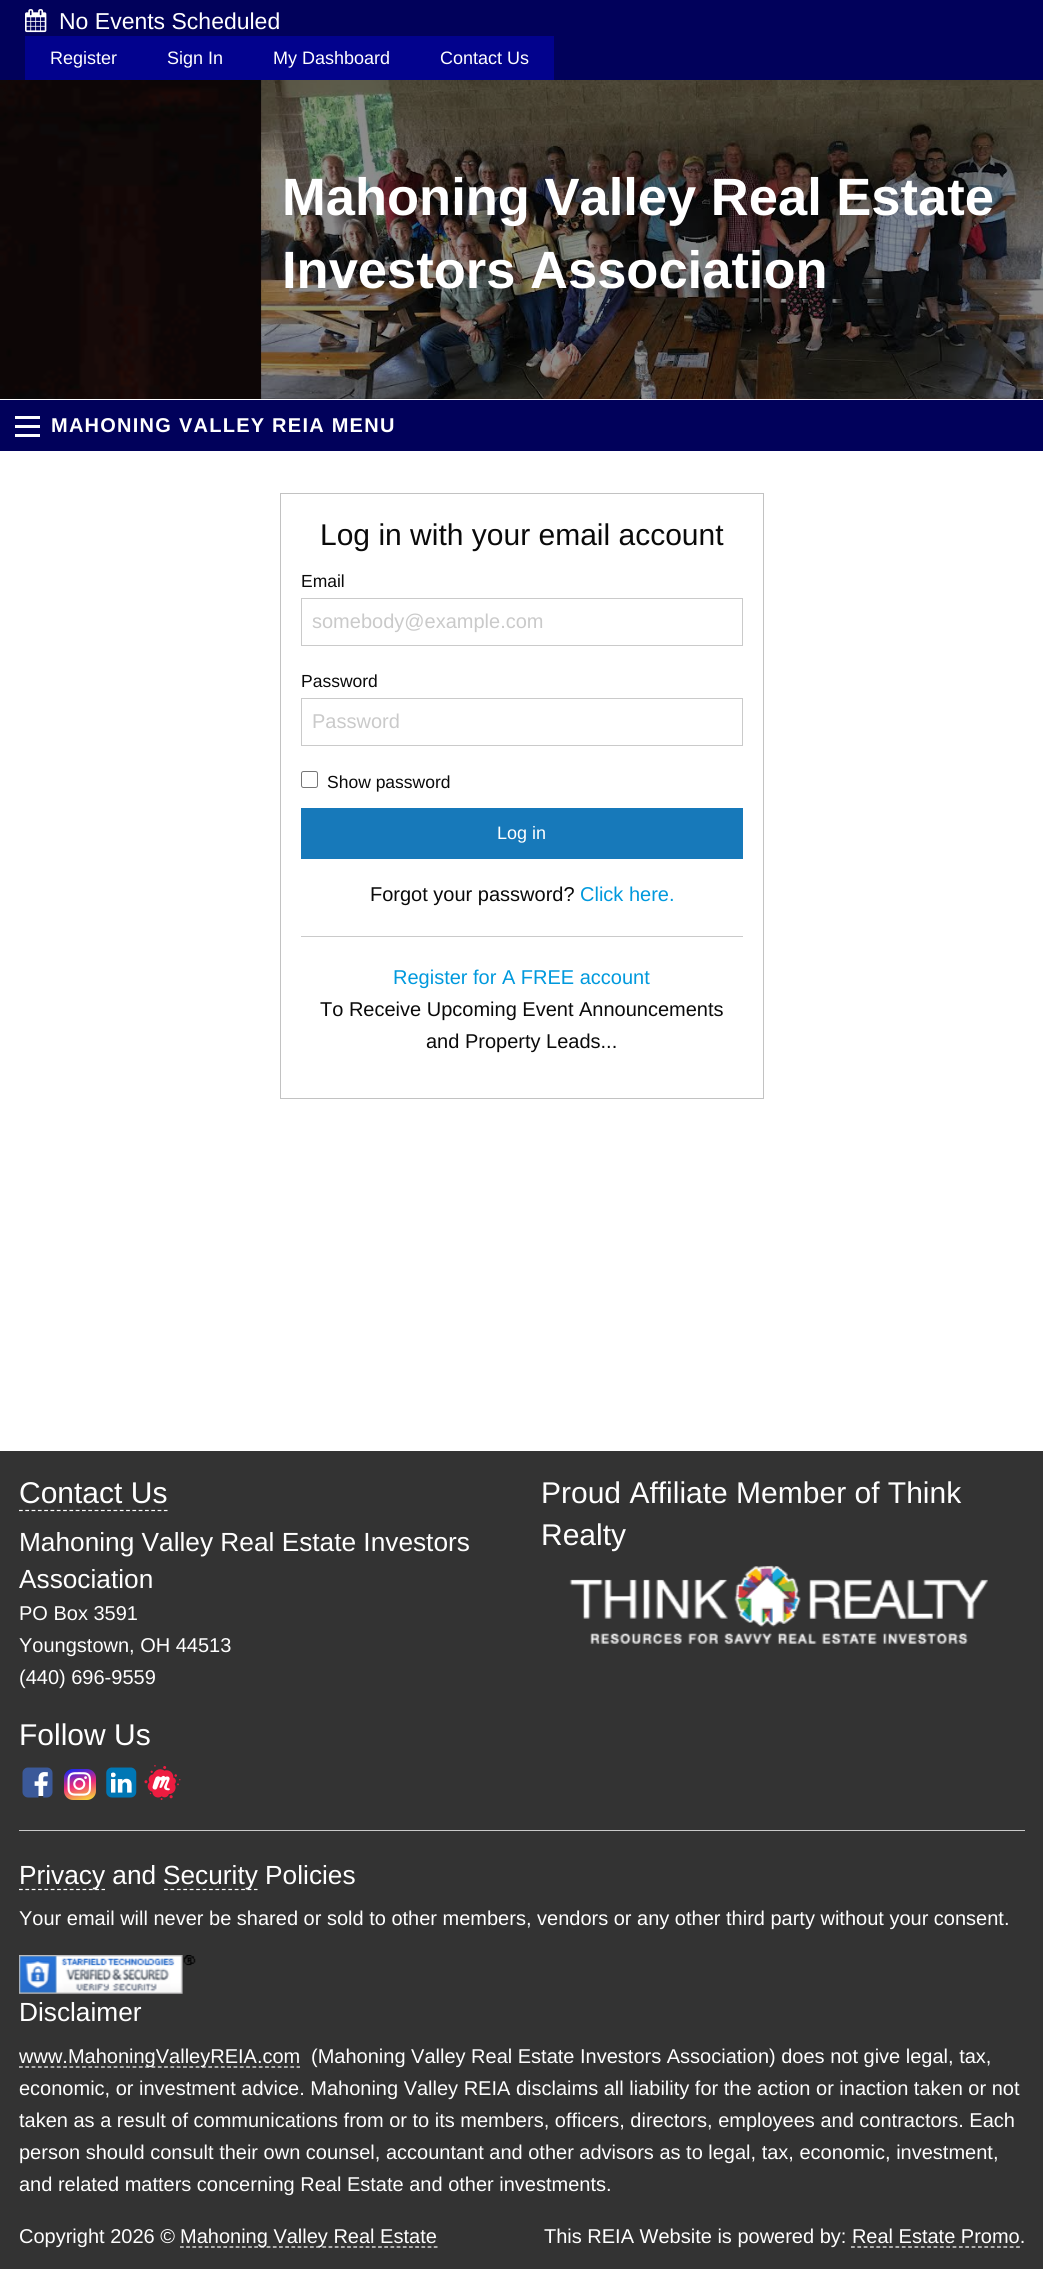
#include <cairo.h>
#include <math.h>
#include <stddef.h>


static void set_color(cairo_t *cr, unsigned color) {
    cairo_set_source_rgb(cr, (color >> 16) / 255.0, (color >> 8 & 255) / 255.0, (color & 255) / 255.0);
}

static void draw_text(cairo_t *cr, double x, double y, const char *s, const char *family, double size, int italic, int bold, unsigned color) {
    cairo_select_font_face(cr, family, italic ? CAIRO_FONT_SLANT_ITALIC : CAIRO_FONT_SLANT_NORMAL,
        bold ? CAIRO_FONT_WEIGHT_BOLD : CAIRO_FONT_WEIGHT_NORMAL);
    cairo_set_font_size(cr, size);
    set_color(cr, color);
    cairo_move_to(cr, x, y);
    cairo_show_text(cr, s);
}

static void draw_spaced(cairo_t *cr, double x, double y, const char *s, double letter, double word) {
    cairo_move_to(cr, x, y);
    while (*s) {
        char ch[5] = {0};
        int n = 0;
        do ch[n++] = *s++; while ((*s & 0xC0) == 0x80);
        cairo_show_text(cr, ch);
        cairo_rel_move_to(cr, letter + word * (*ch == ' '), 0);
    }
}

static void fill_rect(cairo_t *cr, double x, double y, double w, double h, unsigned color) {
    set_color(cr, color);
    cairo_rectangle(cr, x, y, w, h);
    cairo_fill(cr);
}

static void rounded_rect(cairo_t *cr, double x, double y, double w, double h, double r) {
    cairo_new_sub_path(cr);
    cairo_arc(cr, x + w - r, y + h - r, r, 0, M_PI / 2);
    cairo_arc(cr, x + r, y + h - r, r, M_PI / 2, M_PI);
    cairo_arc(cr, x + r, y + r, r, M_PI, 1.5 * M_PI);
    cairo_arc(cr, x + w - r, y + r, r, 1.5 * M_PI, 2 * M_PI);
    cairo_close_path(cr);
}

static void draw_image(cairo_t *cr, const char *path, double x, double y, double w, double h) {
    cairo_surface_t *image = cairo_image_surface_create_from_png(path);
    cairo_save(cr);
    cairo_set_source_surface(cr, image, x, y);
    cairo_rectangle(cr, x, y, w, h);
    cairo_fill(cr);
    cairo_restore(cr);
    cairo_surface_destroy(image);
}

int main(void) {
    cairo_surface_t *surface = cairo_image_surface_create(CAIRO_FORMAT_RGB24, 1043, 2269);
    cairo_t *cr = cairo_create(surface);
    cairo_font_options_t *options = cairo_font_options_create();
    cairo_font_options_set_hint_metrics(options, CAIRO_HINT_METRICS_OFF);
    cairo_font_options_set_hint_style(options, CAIRO_HINT_STYLE_NONE);
    cairo_set_font_options(cr, options);
    cairo_set_miter_limit(cr, 4);
    cairo_pattern_t *gradient;
    set_color(cr, 0xFFFFFF);
    cairo_paint(cr);
    fill_rect(cr, 0, 0, 1043, 80, 0x01015B);
    draw_image(cr, "assets/img1.png", 25, 9, 22, 24);
    draw_text(cr, 59, 29, "No Events Scheduled", "Liberation Sans", 23, 0, 0, 0xFFFFFF);
    fill_rect(cr, 25, 36, 529, 44, 0x02028D);
    draw_text(cr, 50, 64, "Register", "Liberation Sans", 18, 0, 0, 0xFFFFFF);
    draw_text(cr, 167, 64, "Sign In", "Liberation Sans", 18, 0, 0, 0xFFFFFF);
    draw_text(cr, 273, 64, "My Dashboard", "Liberation Sans", 18, 0, 0, 0xFFFFFF);
    draw_text(cr, 440, 64, "Contact Us", "Liberation Sans", 18, 0, 0, 0xFFFFFF);
    draw_image(cr, "assets/img2.png", 0, 80, 1043, 319);
    draw_image(cr, "assets/img3.png", 261, 80, 782, 319);
    draw_text(cr, 282, 215, "Mahoning Valley Real Estate", "Liberation Sans", 52.5, 0, 1, 0xFFFFFF);
    draw_text(cr, 282, 288, "Investors Association", "Liberation Sans", 52.5, 0, 1, 0xFFFFFF);
    fill_rect(cr, 0, 400, 1043, 51, 0x01015B);
    fill_rect(cr, 15, 434, 25, 3, 0xFEFEFE);
    fill_rect(cr, 15, 425, 25, 3, 0xFEFEFE);
    fill_rect(cr, 15, 416, 25, 3, 0xFEFEFE);
    cairo_set_font_size(cr, 20);
    set_color(cr, 0xFFFFFF);
    draw_spaced(cr, 51, 432, "MAHONING VALLEY REIA MENU", 1.25, 0);
    cairo_rectangle(cr, 280.5, 493.5, 483, 605);
    set_color(cr, 0xC2C2C2);
    cairo_set_line_width(cr, 1);
    cairo_stroke(cr);
    draw_text(cr, 320, 545, "Log in with your email account", "Liberation Sans", 30, 0, 0, 0x0A0A0A);
    draw_text(cr, 301, 587, "Email", "Liberation Sans", 17.5, 0, 0, 0x0A0A0A);
    cairo_rectangle(cr, 301.5, 598.5, 441, 47);
    set_color(cr, 0xCACACA);
    cairo_stroke(cr);
    draw_text(cr, 312, 628, "somebody@example.com", "Liberation Sans", 20, 0, 0, 0xCACACA);
    draw_text(cr, 301, 687, "Password", "Liberation Sans", 17.5, 0, 0, 0x0A0A0A);
    cairo_rectangle(cr, 301.5, 698.5, 441, 47);
    set_color(cr, 0xCACACA);
    cairo_stroke(cr);
    draw_text(cr, 312, 728, "Password", "Liberation Sans", 20, 0, 0, 0xCACACA);
    rounded_rect(cr, 301.5, 771.5, 16, 16, 2);
    set_color(cr, 0x767676);
    cairo_stroke(cr);
    draw_text(cr, 327, 788, "Show password", "Liberation Sans", 17.5, 0, 0, 0x0A0A0A);
    fill_rect(cr, 301, 808, 442, 51, 0x1779BA);
    draw_text(cr, 497, 839, "Log in", "Liberation Sans", 18, 0, 0, 0xFFFFFF);
    draw_text(cr, 370, 901, "Forgot your password?", "Liberation Sans", 20, 0, 0, 0x0A0A0A);
    draw_text(cr, 580, 901, "Click here.", "Liberation Sans", 20, 0, 0, 0x0099DD);
    fill_rect(cr, 301, 936, 442, 1, 0xCACACA);
    draw_text(cr, 393, 984, "Register for A FREE account", "Liberation Sans", 20, 0, 0, 0x0099DD);
    draw_text(cr, 320, 1016, "To Receive Upcoming Event Announcements", "Liberation Sans", 20, 0, 0, 0x0A0A0A);
    draw_text(cr, 426, 1048, "and Property Leads...", "Liberation Sans", 20, 0, 0, 0x0A0A0A);
    fill_rect(cr, 0, 1451, 1043, 818, 0x333333);
    draw_text(cr, 19, 1503, "Contact Us", "Liberation Sans", 30, 0, 0, 0xFFFFFF);
    cairo_new_path(cr);
    cairo_move_to(cr, 19, 1510.5);
    cairo_line_to(cr, 167.5, 1510.5);
    cairo_set_line_width(cr, 1.2);
    cairo_set_dash(cr, (double[]){3.75, 2.55}, 2, 0);
    cairo_stroke(cr);
    draw_text(cr, 19, 1551, "Mahoning Valley Real Estate Investors", "Liberation Sans", 26.25, 0, 0, 0xFFFFFF);
    draw_text(cr, 19, 1588, "Association", "Liberation Sans", 26.25, 0, 0, 0xFFFFFF);
    draw_text(cr, 19, 1620, "PO Box 3591", "Liberation Sans", 20, 0, 0, 0xFFFFFF);
    draw_text(cr, 19, 1652, "Youngstown, OH 44513", "Liberation Sans", 20, 0, 0, 0xFFFFFF);
    draw_text(cr, 19, 1684, "(440) 696-9559", "Liberation Sans", 20, 0, 0, 0xFFFFFF);
    draw_text(cr, 541, 1503, "Proud Affiliate Member of Think", "Liberation Sans", 30, 0, 0, 0xFFFFFF);
    draw_text(cr, 541, 1545, "Realty", "Liberation Sans", 30, 0, 0, 0xFFFFFF);
    draw_image(cr, "assets/img4.png", 569, 1565, 419, 79);
    draw_text(cr, 19, 1745, "Follow Us", "Liberation Sans", 30, 0, 0, 0xFFFFFF);
    fill_rect(cr, 34, 1772, 14, 24, 0xFFFFFF);
    draw_image(cr, "assets/img5.png", 22, 1767, 31, 31);
    gradient = cairo_pattern_create_linear(85, 1803, 75, 1766);
    cairo_pattern_add_color_stop_rgba(gradient, 0, 0.976, 0.929, 0.196, 1);
    cairo_pattern_add_color_stop_rgba(gradient, 0.5, 0.933, 0.165, 0.482, 1);
    cairo_pattern_add_color_stop_rgba(gradient, 1, 0, 0.165, 1, 1);
    cairo_set_source(cr, gradient);
    cairo_pattern_destroy(gradient);
    rounded_rect(cr, 64, 1769, 32, 31, 9);
    cairo_fill(cr);
    draw_image(cr, "assets/img6.png", 67, 1772, 25, 24);
    fill_rect(cr, 111, 1772, 21, 21, 0xFFFFFF);
    draw_image(cr, "assets/img7.png", 106, 1767, 31, 31);
    rounded_rect(cr, 151, 1771, 22, 25, 11);
    cairo_fill(cr);
    draw_image(cr, "assets/img8.png", 144, 1765, 37, 35);
    fill_rect(cr, 19, 1830, 1006, 1, 0xCACACA);
    cairo_new_path(cr);
    cairo_move_to(cr, 19, 1889.5);
    cairo_line_to(cr, 105, 1889.5);
    set_color(cr, 0xFFFFFF);
    cairo_set_dash(cr, (double[]){3.75, 2.6}, 2, 0);
    cairo_stroke(cr);
    draw_text(cr, 19, 1884, "Privacy and", "Liberation Sans", 26.25, 0, 0, 0xFFFFFF);
    cairo_new_path(cr);
    cairo_move_to(cr, 164, 1889.5);
    cairo_line_to(cr, 257.5, 1889.5);
    cairo_set_dash(cr, (double[]){3.75, 2.68}, 2, 0);
    cairo_stroke(cr);
    draw_text(cr, 163, 1884, "Security Policies", "Liberation Sans", 26.25, 0, 0, 0xFFFFFF);
    draw_text(cr, 19, 1925, "Your email will never be shared or sold to other members, vendors or any other third party without your consent.", "Liberation Sans", 20, 0, 0, 0xFFFFFF);
    draw_image(cr, "assets/img9.png", 19, 1955, 177, 39);
    draw_text(cr, 19, 2021, "Disclaimer", "Liberation Sans", 26.25, 0, 0, 0xFFFFFF);
    cairo_new_path(cr);
    cairo_move_to(cr, 19, 2067);
    cairo_line_to(cr, 300, 2067);
    cairo_set_dash(cr, (double[]){3.75, 2.56}, 2, 0);
    cairo_stroke(cr);
    draw_text(cr, 19, 2063, "www.MahoningValleyREIA.com", "Liberation Sans", 20, 0, 0, 0xFFFFFF);
    draw_text(cr, 311, 2063, "(Mahoning Valley Real Estate Investors Association) does not give legal, tax,", "Liberation Sans", 20, 0, 0, 0xFFFFFF);
    draw_text(cr, 19, 2095, "economic, or investment advice. Mahoning Valley REIA disclaims all liability for the action or inaction taken or not", "Liberation Sans", 20, 0, 0, 0xFFFFFF);
    draw_text(cr, 19, 2127, "taken as a result of communications from or to its members, officers, directors, employees and contractors. Each", "Liberation Sans", 20, 0, 0, 0xFFFFFF);
    draw_text(cr, 19, 2159, "person should consult their own counsel, accountant and other advisors as to legal, tax, economic, investment,", "Liberation Sans", 20, 0, 0, 0xFFFFFF);
    draw_text(cr, 19, 2191, "and related matters concerning Real Estate and other investments.", "Liberation Sans", 20, 0, 0, 0xFFFFFF);
    draw_text(cr, 19, 2243, "Copyright 2026 ©", "Liberation Sans", 20, 0, 0, 0xFFFFFF);
    cairo_new_path(cr);
    cairo_move_to(cr, 180, 2247);
    cairo_line_to(cr, 437.5, 2247);
    cairo_set_dash(cr, (double[]){3.75, 2.44}, 2, 0);
    cairo_stroke(cr);
    draw_text(cr, 180, 2243, "Mahoning Valley Real Estate", "Liberation Sans", 20, 0, 0, 0xFFFFFF);
    draw_text(cr, 544, 2243, "This REIA Website is powered by: Real Estate Promo.", "Liberation Sans", 20, 0, 0, 0xFFFFFF);
    cairo_new_path(cr);
    cairo_move_to(cr, 851, 2247);
    cairo_line_to(cr, 1020, 2247);
    cairo_set_dash(cr, (double[]){3.75, 2.6}, 2, 0);
    cairo_stroke(cr);
    cairo_surface_write_to_png(surface, "output.png");
    cairo_font_options_destroy(options);
    cairo_destroy(cr);
    cairo_surface_destroy(surface);
    return 0;
}
